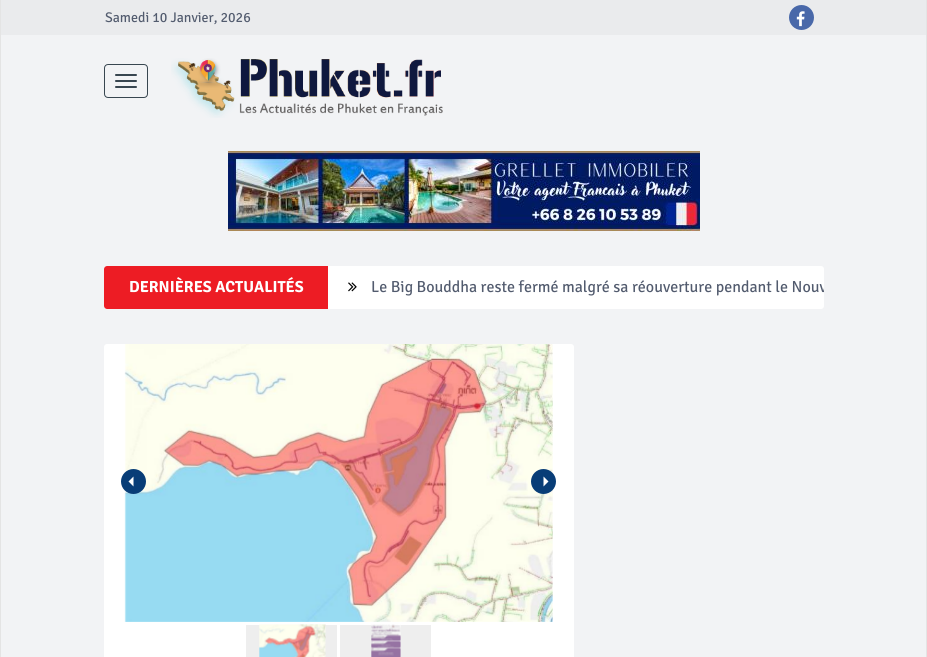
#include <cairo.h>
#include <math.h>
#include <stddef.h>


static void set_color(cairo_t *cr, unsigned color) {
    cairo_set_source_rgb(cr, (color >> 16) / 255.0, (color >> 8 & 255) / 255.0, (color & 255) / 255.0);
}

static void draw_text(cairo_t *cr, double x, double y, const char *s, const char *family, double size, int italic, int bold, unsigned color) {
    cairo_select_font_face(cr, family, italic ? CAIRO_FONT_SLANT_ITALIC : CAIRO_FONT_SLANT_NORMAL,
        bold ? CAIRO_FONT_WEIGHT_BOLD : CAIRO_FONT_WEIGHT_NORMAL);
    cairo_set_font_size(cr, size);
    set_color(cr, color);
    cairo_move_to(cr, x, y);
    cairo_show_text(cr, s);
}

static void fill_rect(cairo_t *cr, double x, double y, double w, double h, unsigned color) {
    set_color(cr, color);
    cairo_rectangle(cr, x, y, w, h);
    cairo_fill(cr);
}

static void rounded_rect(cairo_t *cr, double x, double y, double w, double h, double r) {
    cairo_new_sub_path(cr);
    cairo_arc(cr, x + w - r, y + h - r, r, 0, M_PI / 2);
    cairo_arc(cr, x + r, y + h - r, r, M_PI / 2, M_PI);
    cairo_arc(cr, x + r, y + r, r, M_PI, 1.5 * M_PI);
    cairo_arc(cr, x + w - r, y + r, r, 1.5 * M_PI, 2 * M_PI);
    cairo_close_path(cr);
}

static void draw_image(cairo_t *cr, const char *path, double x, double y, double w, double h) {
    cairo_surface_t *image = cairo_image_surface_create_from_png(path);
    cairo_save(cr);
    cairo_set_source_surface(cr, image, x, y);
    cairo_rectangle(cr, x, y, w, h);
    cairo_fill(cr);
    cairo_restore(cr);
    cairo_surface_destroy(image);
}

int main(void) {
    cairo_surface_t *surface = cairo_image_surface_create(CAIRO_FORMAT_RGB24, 927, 657);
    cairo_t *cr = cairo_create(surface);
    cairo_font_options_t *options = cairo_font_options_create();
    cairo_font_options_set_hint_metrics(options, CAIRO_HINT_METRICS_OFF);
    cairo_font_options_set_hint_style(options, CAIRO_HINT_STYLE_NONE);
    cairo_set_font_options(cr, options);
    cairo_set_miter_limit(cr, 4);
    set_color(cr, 0xF2F3F5);
    cairo_paint(cr);
    fill_rect(cr, 926, 0, 1, 657, 0xE4E4E4);
    fill_rect(cr, 0, 0, 1, 657, 0xE4E4E4);
    fill_rect(cr, 1, 0, 925, 35, 0xEAEBED);
    draw_text(cr, 105, 22, "Samedi 10 Janvier, 2026", "Signika Negative", 14, 0, 0, 0x525B6E);
    set_color(cr, 0x4968A9);
    cairo_new_path(cr);
    cairo_arc(cr, 801.5, 17.5, 12.5, 0, 2 * M_PI);
    cairo_fill(cr);
    draw_image(cr, "assets/img1.png", 796, 11, 9, 16);
    rounded_rect(cr, 104.5, 64.5, 43, 33, 3.5);
    set_color(cr, 0x384650);
    cairo_set_line_width(cr, 1);
    cairo_stroke(cr);
    rounded_rect(cr, 115, 74, 22, 2, 1);
    cairo_fill(cr);
    rounded_rect(cr, 115, 80, 22, 2, 1);
    cairo_fill(cr);
    rounded_rect(cr, 115, 86, 22, 2, 1);
    cairo_fill(cr);
    draw_image(cr, "assets/img2.png", 171, 58, 272, 60);
    draw_image(cr, "assets/img3.png", 228, 151, 472, 80);
    set_color(cr, 0xFFFFFF);
    rounded_rect(cr, 104, 266, 720, 43, 3);
    cairo_fill(cr);
    set_color(cr, 0xED1C24);
    cairo_new_path(cr);
    cairo_move_to(cr, 107, 266);
    cairo_line_to(cr, 328, 266);
    cairo_line_to(cr, 328, 309);
    cairo_line_to(cr, 107, 309);
    cairo_curve_to(cr, 105.5, 309, 104, 307.5, 104, 306);
    cairo_line_to(cr, 104, 269);
    cairo_curve_to(cr, 104, 267.5, 105.5, 266, 107, 266);
    cairo_close_path(cr);
    cairo_fill(cr);
    draw_text(cr, 129, 292, "DERNIÈRES ACTUALITÉS", "Signika Negative", 16, 0, 1, 0xFFFFFF);
    draw_image(cr, "assets/img4.png", 348, 282, 9, 10);
    cairo_save(cr);
    rounded_rect(cr, 104, 266, 720, 43, 3);
    cairo_clip(cr);
    draw_text(cr, 371, 292, "Le Big Bouddha reste fermé malgré sa réouverture pendant le Nouv", "Signika Negative", 16, 0, 0, 0x525B6E);
    cairo_restore(cr);
    rounded_rect(cr, 104, 344, 470, 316, 3);
    cairo_fill(cr);
    draw_image(cr, "assets/img5.png", 124, 344, 429, 278);
    set_color(cr, 0x083D77);
    cairo_arc(cr, 133.5, 481.5, 12.5, 0, 2 * M_PI);
    cairo_fill(cr);
    set_color(cr, 0xFFFFFF);
    cairo_new_path(cr);
    cairo_move_to(cr, 133.5, 476.5);
    cairo_line_to(cr, 128.5, 481.5);
    cairo_line_to(cr, 133.5, 486.5);
    cairo_fill(cr);
    set_color(cr, 0x083D77);
    cairo_arc(cr, 543.5, 481.5, 12.5, 0, 2 * M_PI);
    cairo_fill(cr);
    set_color(cr, 0xFFFFFF);
    cairo_new_path(cr);
    cairo_move_to(cr, 543.5, 476.5);
    cairo_line_to(cr, 548.5, 481.5);
    cairo_line_to(cr, 543.5, 486.5);
    cairo_fill(cr);
    fill_rect(cr, 246, 625, 91, 32, 0xEEEEEE);
    draw_image(cr, "assets/img6.png", 259, 624, 67, 33);
    fill_rect(cr, 340, 625, 91, 32, 0xEEEEEE);
    draw_image(cr, "assets/img7.png", 371, 624, 30, 33);
    cairo_surface_write_to_png(surface, "output.png");
    cairo_font_options_destroy(options);
    cairo_destroy(cr);
    cairo_surface_destroy(surface);
    return 0;
}
